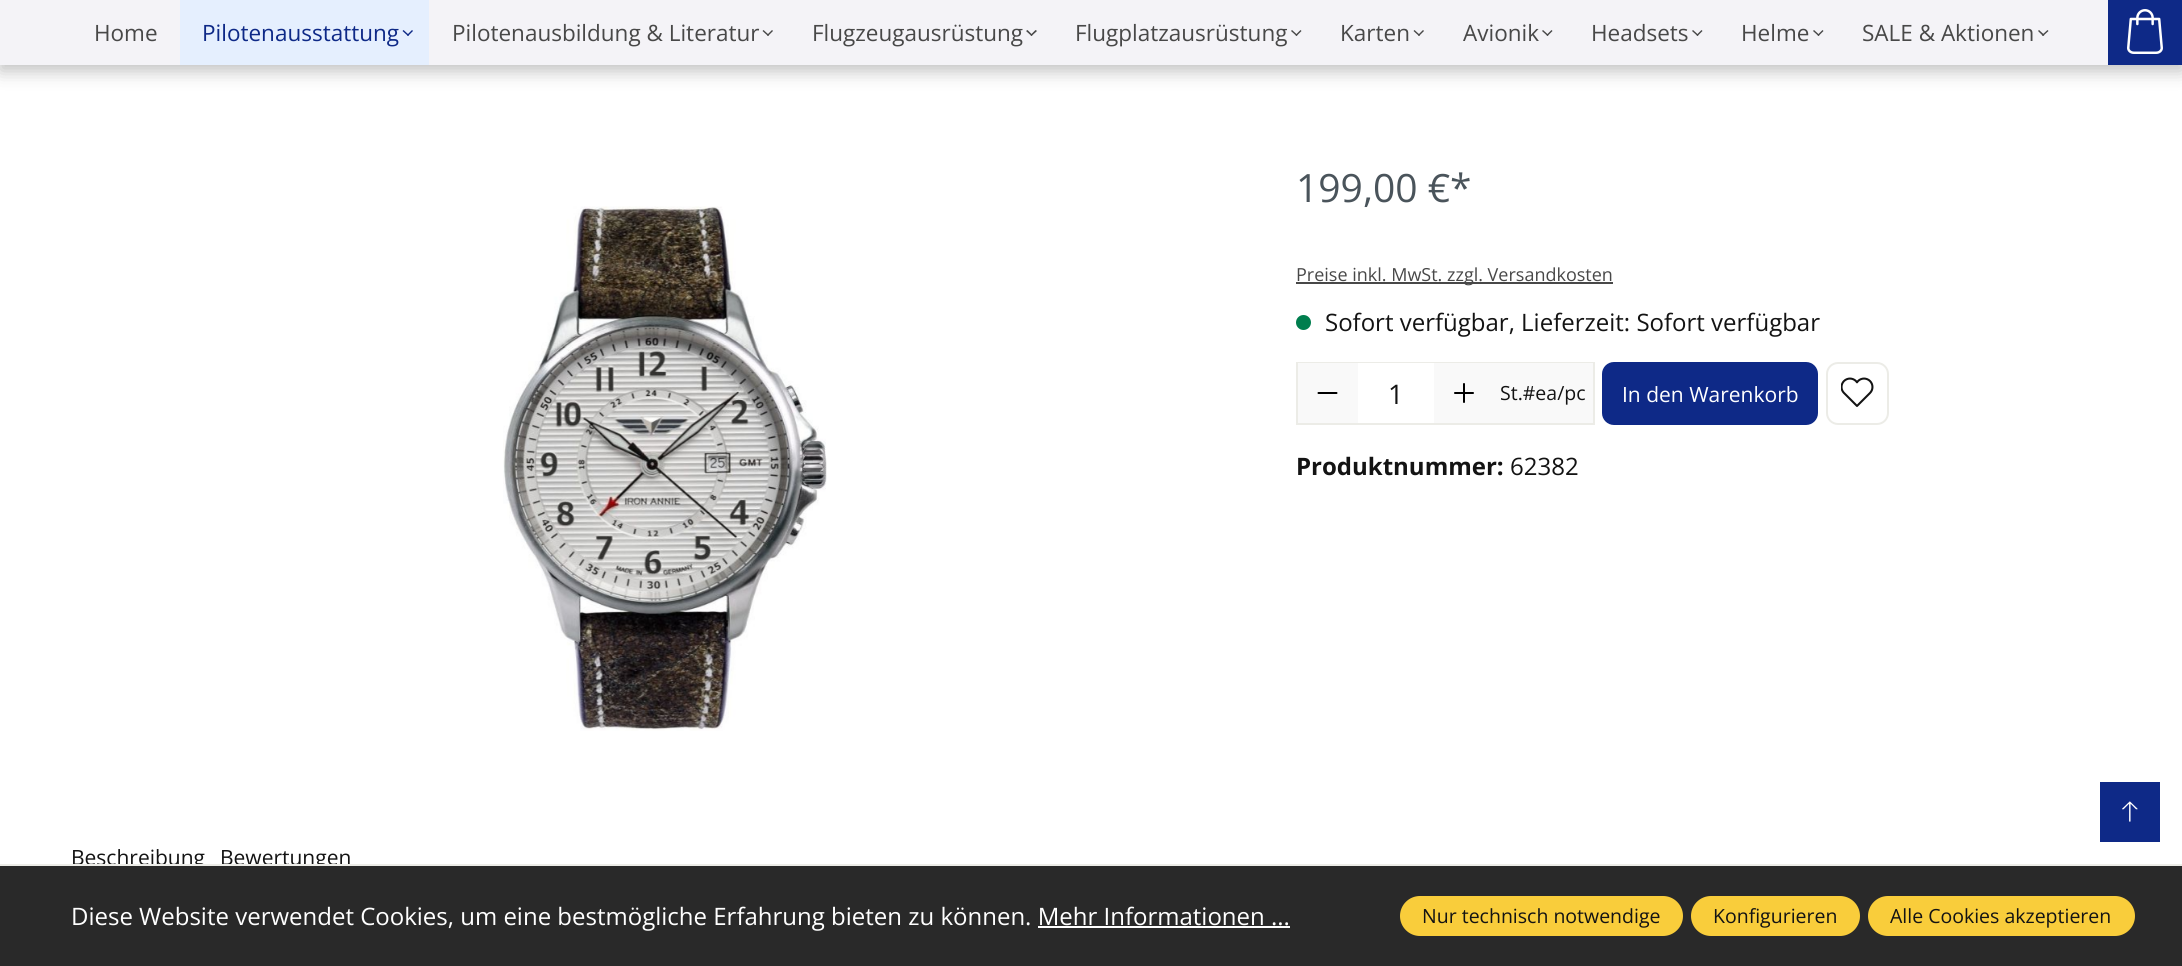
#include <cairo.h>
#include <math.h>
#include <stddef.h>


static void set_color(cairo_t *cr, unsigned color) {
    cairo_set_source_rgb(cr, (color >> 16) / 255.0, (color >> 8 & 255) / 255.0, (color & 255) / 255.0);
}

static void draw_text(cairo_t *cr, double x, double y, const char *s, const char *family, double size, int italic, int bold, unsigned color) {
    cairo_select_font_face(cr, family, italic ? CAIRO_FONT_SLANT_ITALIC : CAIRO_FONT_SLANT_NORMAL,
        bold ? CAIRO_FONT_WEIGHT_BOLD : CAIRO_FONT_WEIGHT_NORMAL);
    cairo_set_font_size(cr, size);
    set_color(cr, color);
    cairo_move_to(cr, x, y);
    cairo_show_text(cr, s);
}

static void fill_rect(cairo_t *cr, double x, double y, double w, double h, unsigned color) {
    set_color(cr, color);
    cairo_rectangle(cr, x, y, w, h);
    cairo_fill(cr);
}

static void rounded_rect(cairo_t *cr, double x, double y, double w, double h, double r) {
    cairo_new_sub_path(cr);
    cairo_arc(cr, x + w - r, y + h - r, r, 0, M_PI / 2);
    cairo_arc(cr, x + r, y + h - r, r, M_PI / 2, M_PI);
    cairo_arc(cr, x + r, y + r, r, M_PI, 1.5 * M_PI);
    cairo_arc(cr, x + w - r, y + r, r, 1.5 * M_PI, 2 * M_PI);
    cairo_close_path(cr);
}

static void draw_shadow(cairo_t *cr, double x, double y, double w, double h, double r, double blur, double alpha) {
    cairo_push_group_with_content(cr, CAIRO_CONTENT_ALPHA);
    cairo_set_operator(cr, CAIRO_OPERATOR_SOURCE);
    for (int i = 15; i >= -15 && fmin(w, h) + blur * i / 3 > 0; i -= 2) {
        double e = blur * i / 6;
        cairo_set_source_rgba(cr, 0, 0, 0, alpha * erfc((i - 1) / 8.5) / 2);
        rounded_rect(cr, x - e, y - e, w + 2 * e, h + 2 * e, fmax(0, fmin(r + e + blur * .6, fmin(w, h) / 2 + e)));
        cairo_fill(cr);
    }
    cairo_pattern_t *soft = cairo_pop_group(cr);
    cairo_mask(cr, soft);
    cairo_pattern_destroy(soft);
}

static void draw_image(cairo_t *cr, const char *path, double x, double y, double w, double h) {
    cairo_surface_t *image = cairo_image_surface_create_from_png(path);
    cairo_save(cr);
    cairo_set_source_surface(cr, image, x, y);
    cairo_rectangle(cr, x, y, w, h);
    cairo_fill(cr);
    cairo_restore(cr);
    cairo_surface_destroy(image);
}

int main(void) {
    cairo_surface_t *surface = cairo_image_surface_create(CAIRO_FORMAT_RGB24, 2182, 966);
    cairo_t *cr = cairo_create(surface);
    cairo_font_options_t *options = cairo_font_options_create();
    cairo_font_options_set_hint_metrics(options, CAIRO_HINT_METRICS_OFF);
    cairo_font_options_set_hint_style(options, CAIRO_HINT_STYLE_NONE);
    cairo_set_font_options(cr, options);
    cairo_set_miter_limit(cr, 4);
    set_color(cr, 0xFFFFFF);
    cairo_paint(cr);
    set_color(cr, 0x000000);
    draw_shadow(cr, 0, 6, 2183, 65, 0, 9, 0.25);
    fill_rect(cr, 0, 0, 2108, 65, 0xF4F3F7);
    draw_text(cr, 94, 41, "Home", "Open Sans", 22.5, 0, 0, 0x484848);
    fill_rect(cr, 180, 0, 249, 65, 0xE5EFFE);
    draw_text(cr, 202, 41, "Pilotenausstattung", "Open Sans", 22.5, 0, 0, 0x0E2987);
    cairo_new_path(cr);
    cairo_move_to(cr, 412, 30);
    cairo_line_to(cr, 413, 31);
    cairo_line_to(cr, 408, 36);
    cairo_line_to(cr, 407, 35);
    cairo_close_path(cr);
    cairo_fill(cr);
    cairo_new_path(cr);
    cairo_move_to(cr, 403.5, 30);
    cairo_line_to(cr, 409, 35);
    cairo_line_to(cr, 408, 36);
    cairo_line_to(cr, 402.5, 31);
    cairo_close_path(cr);
    cairo_fill(cr);
    draw_text(cr, 452, 41, "Pilotenausbildung & Literatur", "Open Sans", 22.5, 0, 0, 0x484848);
    cairo_new_path(cr);
    cairo_move_to(cr, 772, 30);
    cairo_line_to(cr, 773, 31);
    cairo_line_to(cr, 768, 36);
    cairo_line_to(cr, 767, 35);
    cairo_close_path(cr);
    cairo_fill(cr);
    cairo_new_path(cr);
    cairo_move_to(cr, 763.5, 30);
    cairo_line_to(cr, 769, 35);
    cairo_line_to(cr, 768, 36);
    cairo_line_to(cr, 762.5, 31);
    cairo_close_path(cr);
    cairo_fill(cr);
    draw_text(cr, 812, 41, "Flugzeugausrüstung", "Open Sans", 22.5, 0, 0, 0x484848);
    cairo_new_path(cr);
    cairo_move_to(cr, 1035.5, 30);
    cairo_line_to(cr, 1037, 31);
    cairo_line_to(cr, 1031.5, 36);
    cairo_line_to(cr, 1030.5, 35);
    cairo_close_path(cr);
    cairo_fill(cr);
    cairo_new_path(cr);
    cairo_move_to(cr, 1027.5, 30);
    cairo_line_to(cr, 1032.5, 35);
    cairo_line_to(cr, 1031.5, 36);
    cairo_line_to(cr, 1026, 31);
    cairo_close_path(cr);
    cairo_fill(cr);
    draw_text(cr, 1075, 41, "Flugplatzausrüstung", "Open Sans", 22.5, 0, 0, 0x484848);
    cairo_new_path(cr);
    cairo_move_to(cr, 1300.5, 30);
    cairo_line_to(cr, 1301.5, 31);
    cairo_line_to(cr, 1296.5, 36);
    cairo_line_to(cr, 1295.5, 35);
    cairo_close_path(cr);
    cairo_fill(cr);
    cairo_new_path(cr);
    cairo_move_to(cr, 1292, 30);
    cairo_line_to(cr, 1297.5, 35);
    cairo_line_to(cr, 1296.5, 36);
    cairo_line_to(cr, 1291, 31);
    cairo_close_path(cr);
    cairo_fill(cr);
    draw_text(cr, 1340, 41, "Karten", "Open Sans", 22.5, 0, 0, 0x484848);
    cairo_new_path(cr);
    cairo_move_to(cr, 1423, 30);
    cairo_line_to(cr, 1424, 31);
    cairo_line_to(cr, 1419, 36);
    cairo_line_to(cr, 1418, 35);
    cairo_close_path(cr);
    cairo_fill(cr);
    cairo_new_path(cr);
    cairo_move_to(cr, 1414.5, 30);
    cairo_line_to(cr, 1420, 35);
    cairo_line_to(cr, 1419, 36);
    cairo_line_to(cr, 1413.5, 31);
    cairo_close_path(cr);
    cairo_fill(cr);
    draw_text(cr, 1463, 41, "Avionik", "Open Sans", 22.5, 0, 0, 0x484848);
    cairo_new_path(cr);
    cairo_move_to(cr, 1551.5, 30);
    cairo_line_to(cr, 1552.5, 31);
    cairo_line_to(cr, 1547.5, 36);
    cairo_line_to(cr, 1546.5, 35);
    cairo_close_path(cr);
    cairo_fill(cr);
    cairo_new_path(cr);
    cairo_move_to(cr, 1543, 30);
    cairo_line_to(cr, 1548.5, 35);
    cairo_line_to(cr, 1547.5, 36);
    cairo_line_to(cr, 1542, 31);
    cairo_close_path(cr);
    cairo_fill(cr);
    draw_text(cr, 1591, 41, "Headsets", "Open Sans", 22.5, 0, 0, 0x484848);
    cairo_new_path(cr);
    cairo_move_to(cr, 1701.5, 30);
    cairo_line_to(cr, 1702.5, 31);
    cairo_line_to(cr, 1697.5, 36);
    cairo_line_to(cr, 1696.5, 35);
    cairo_close_path(cr);
    cairo_fill(cr);
    cairo_new_path(cr);
    cairo_move_to(cr, 1693, 30);
    cairo_line_to(cr, 1698.5, 35);
    cairo_line_to(cr, 1697.5, 36);
    cairo_line_to(cr, 1692, 31);
    cairo_close_path(cr);
    cairo_fill(cr);
    draw_text(cr, 1741, 41, "Helme", "Open Sans", 22.5, 0, 0, 0x484848);
    cairo_new_path(cr);
    cairo_move_to(cr, 1822.5, 30);
    cairo_line_to(cr, 1823.5, 31);
    cairo_line_to(cr, 1818.5, 36);
    cairo_line_to(cr, 1817.5, 35);
    cairo_close_path(cr);
    cairo_fill(cr);
    cairo_new_path(cr);
    cairo_move_to(cr, 1814, 30);
    cairo_line_to(cr, 1819.5, 35);
    cairo_line_to(cr, 1818.5, 36);
    cairo_line_to(cr, 1813, 31);
    cairo_close_path(cr);
    cairo_fill(cr);
    draw_text(cr, 1862, 41, "SALE & Aktionen", "Open Sans", 22.5, 0, 0, 0x484848);
    cairo_new_path(cr);
    cairo_move_to(cr, 2047.5, 30);
    cairo_line_to(cr, 2048.5, 31);
    cairo_line_to(cr, 2043, 36);
    cairo_line_to(cr, 2042, 35);
    cairo_close_path(cr);
    cairo_fill(cr);
    cairo_new_path(cr);
    cairo_move_to(cr, 2039, 30);
    cairo_line_to(cr, 2044.5, 35);
    cairo_line_to(cr, 2043, 36);
    cairo_line_to(cr, 2038, 31);
    cairo_close_path(cr);
    cairo_fill(cr);
    fill_rect(cr, 2108, 0, 74, 65, 0x0E2987);
    draw_image(cr, "assets/img1.png", 2127, 9, 36, 45);
    draw_image(cr, "assets/img2.png", 503, 206, 324, 525);
    draw_text(cr, 1296, 202, "199,00 €*", "Open Sans", 39, 0, 0, 0x4A545B);
    fill_rect(cr, 1296, 282, 317, 2, 0x484848);
    draw_text(cr, 1296, 281, "Preise inkl. MwSt. zzgl. Versandkosten", "Open Sans", 18, 0, 0, 0x484848);
    set_color(cr, 0x007E4E);
    cairo_new_path(cr);
    cairo_arc(cr, 1303.5, 322.5, 7.5, 0, 2 * M_PI);
    cairo_fill(cr);
    draw_text(cr, 1325, 331, "Sofort verfügbar, Lieferzeit: Sofort verfügbar", "Open Sans", 24, 0, 0, 0x131313);
    cairo_rectangle(cr, 1297, 363, 297, 61);
    set_color(cr, 0xECECE7);
    cairo_stroke(cr);
    fill_rect(cr, 1298, 363, 60, 60, 0xF9F9F9);
    draw_image(cr, "assets/img3.png", 1317, 392, 21, 2);
    fill_rect(cr, 1358, 363, 76, 1, 0xFFFFFF);
    draw_text(cr, 1388, 404, "1", "Open Sans", 27, 0, 0, 0x131313);
    fill_rect(cr, 1434, 363, 159, 60, 0xF9F9F9);
    draw_image(cr, "assets/img4.png", 1454, 383, 20, 20);
    draw_text(cr, 1500, 400, "St.#ea/pc", "Open Sans", 19.5, 0, 0, 0x131313);
    set_color(cr, 0x0E2987);
    rounded_rect(cr, 1603, 363, 214, 61, 11);
    cairo_fill_preserve(cr);
    cairo_stroke(cr);
    draw_text(cr, 1622, 402, "In den Warenkorb", "Open Sans", 21, 0, 0, 0xFFFFFF);
    rounded_rect(cr, 1827, 363, 61, 61, 11);
    set_color(cr, 0xECECE7);
    cairo_stroke(cr);
    draw_image(cr, "assets/img5.png", 1841, 377, 33, 30);
    draw_text(cr, 1296, 475, "Produktnummer:", "Open Sans", 24, 0, 1, 0x131313);
    draw_text(cr, 1510, 475, "62382", "Open Sans", 24, 0, 0, 0x131313);
    draw_text(cr, 71, 865, "Beschreibung", "Open Sans", 21, 0, 0, 0x131313);
    draw_text(cr, 220, 865, "Bewertungen", "Open Sans", 21, 0, 0, 0x131313);
    fill_rect(cr, 2100, 782, 60, 60, 0x0E2987);
    draw_image(cr, "assets/img6.png", 2122, 801, 16, 21);
    fill_rect(cr, 0, 866, 2182, 100, 0x292929);
    fill_rect(cr, 0, 864, 2182, 2, 0xECECE7);
    draw_text(cr, 71, 925, "Diese Website verwendet Cookies, um eine bestmögliche Erfahrung bieten zu können. Mehr Informationen ...", "Open Sans", 24, 0, 0, 0xFFFFFF);
    fill_rect(cr, 1038, 926, 252, 2, 0xFFFFFF);
    set_color(cr, 0xF9CD3B);
    rounded_rect(cr, 1401, 897, 281, 38, 19);
    cairo_fill_preserve(cr);
    cairo_stroke(cr);
    draw_text(cr, 1422, 923, "Nur technisch notwendige", "Open Sans", 19.5, 0, 0, 0x131313);
    set_color(cr, 0xF9CD3B);
    rounded_rect(cr, 1692, 897, 167, 38, 19);
    cairo_fill_preserve(cr);
    cairo_stroke(cr);
    draw_text(cr, 1713, 923, "Konfigurieren", "Open Sans", 19.5, 0, 0, 0x131313);
    set_color(cr, 0xF9CD3B);
    rounded_rect(cr, 1869, 897, 265, 38, 19);
    cairo_fill_preserve(cr);
    cairo_stroke(cr);
    draw_text(cr, 1890, 923, "Alle Cookies akzeptieren", "Open Sans", 19.5, 0, 0, 0x131313);
    cairo_surface_write_to_png(surface, "output.png");
    cairo_font_options_destroy(options);
    cairo_destroy(cr);
    cairo_surface_destroy(surface);
    return 0;
}
